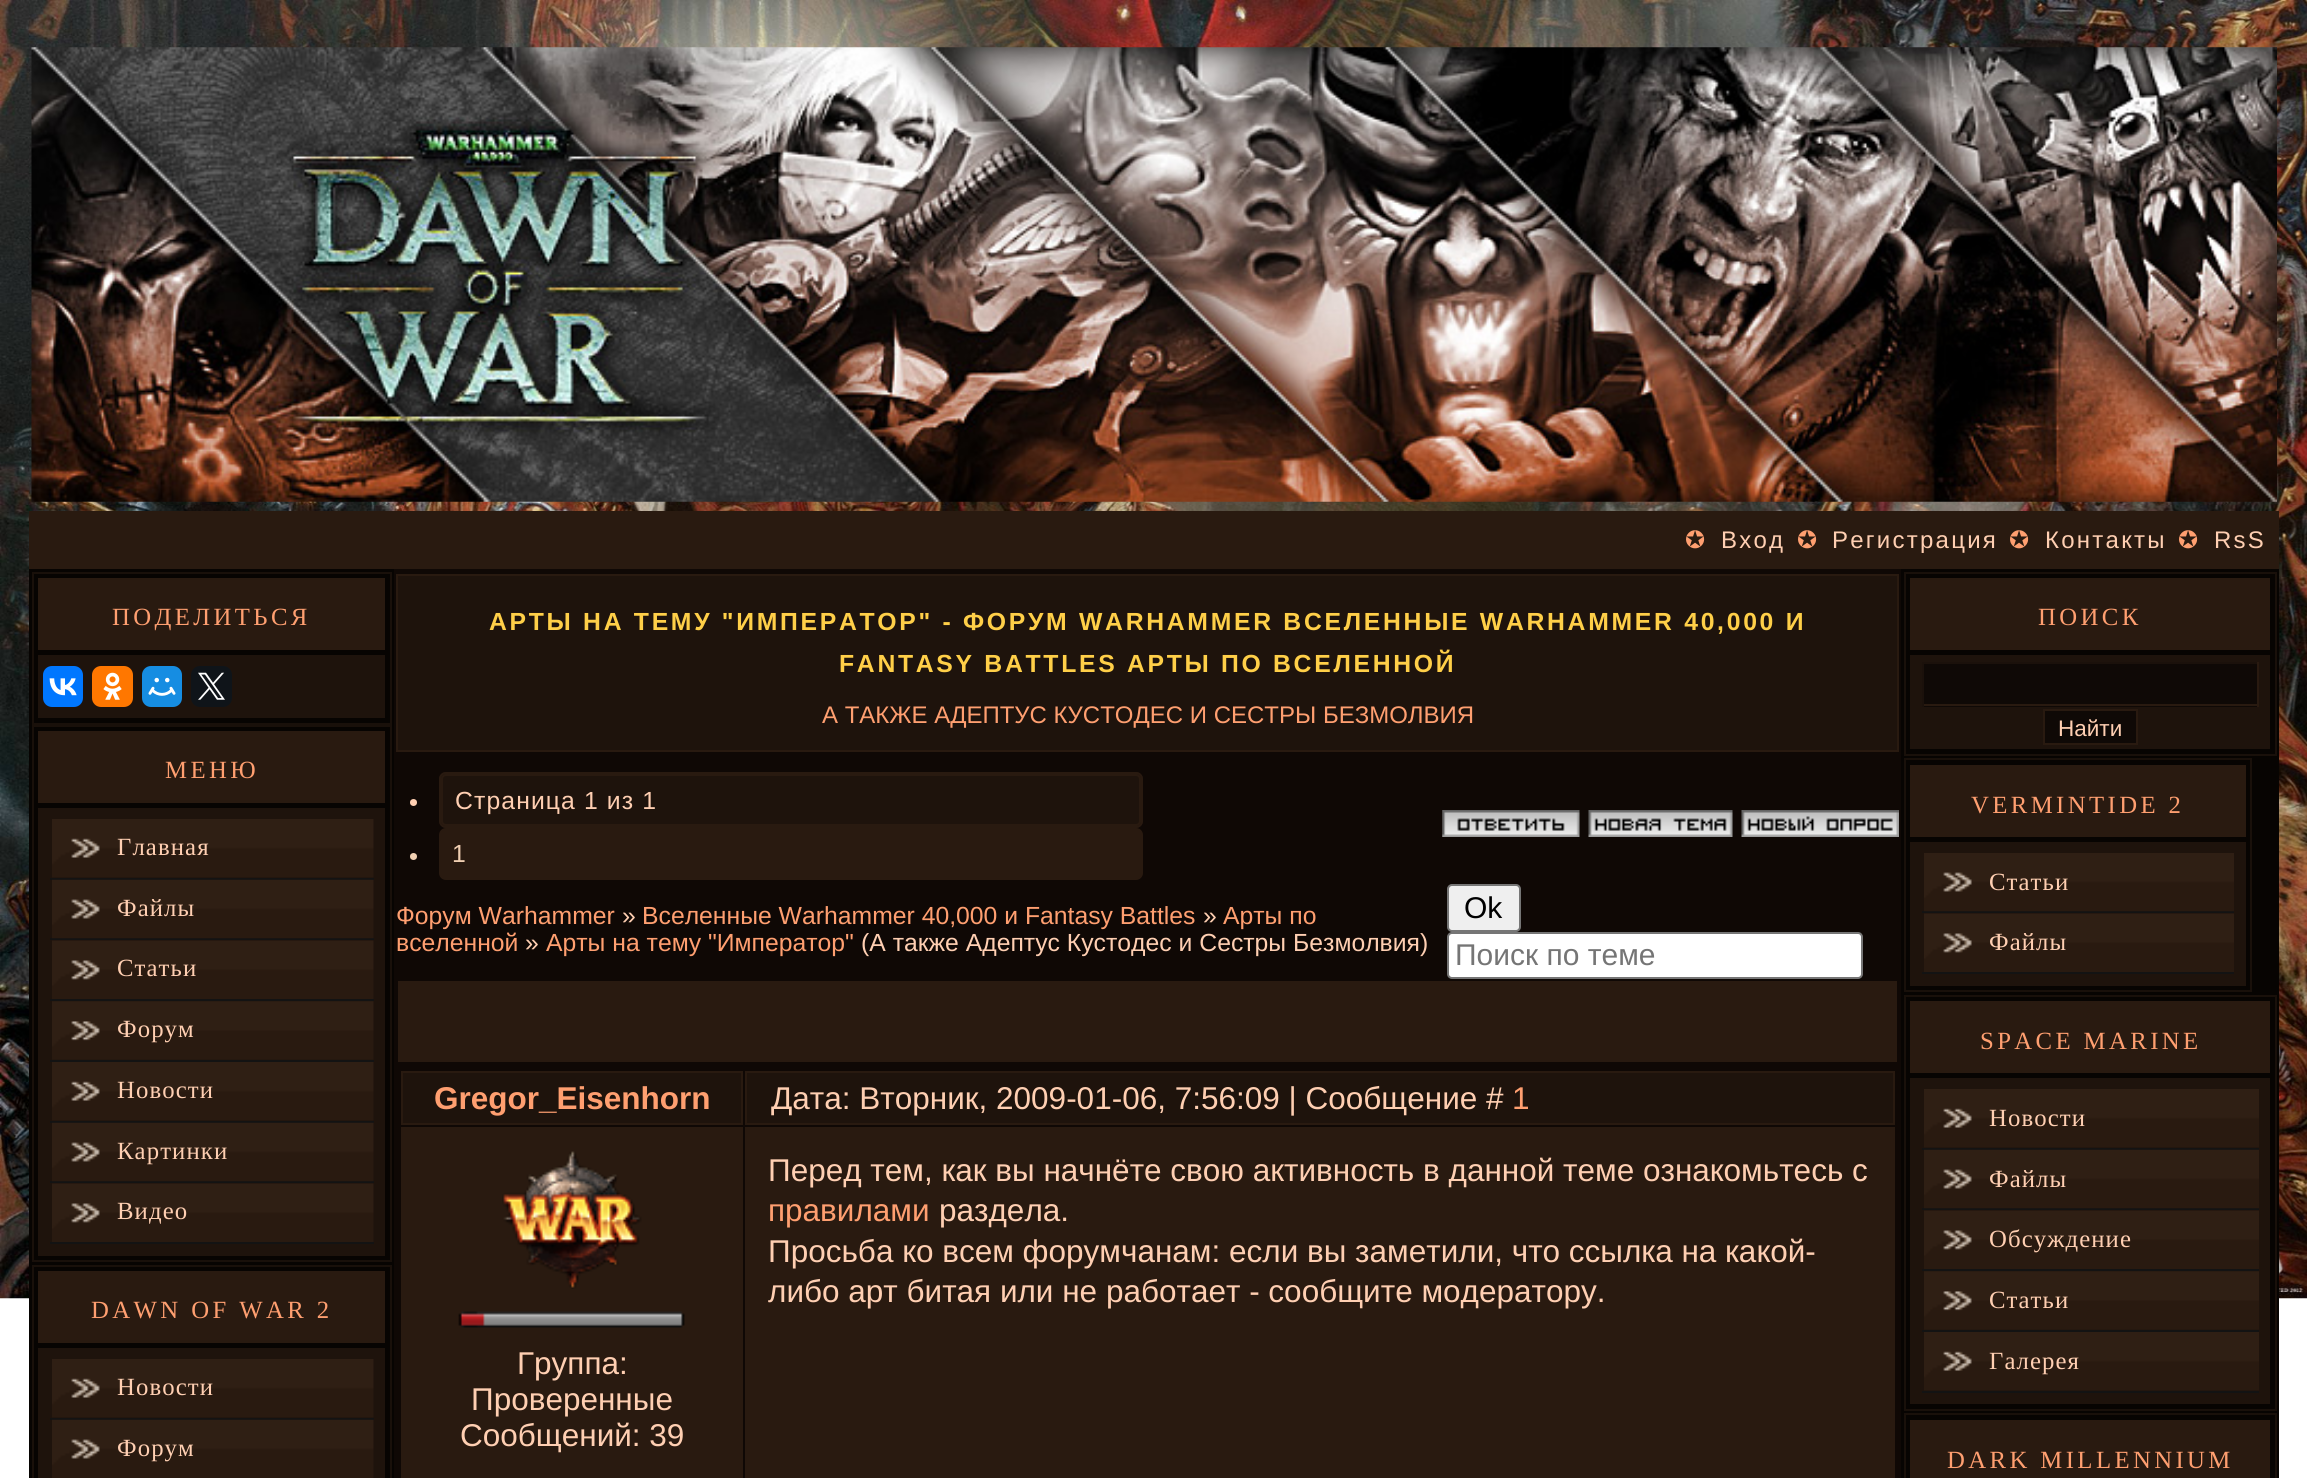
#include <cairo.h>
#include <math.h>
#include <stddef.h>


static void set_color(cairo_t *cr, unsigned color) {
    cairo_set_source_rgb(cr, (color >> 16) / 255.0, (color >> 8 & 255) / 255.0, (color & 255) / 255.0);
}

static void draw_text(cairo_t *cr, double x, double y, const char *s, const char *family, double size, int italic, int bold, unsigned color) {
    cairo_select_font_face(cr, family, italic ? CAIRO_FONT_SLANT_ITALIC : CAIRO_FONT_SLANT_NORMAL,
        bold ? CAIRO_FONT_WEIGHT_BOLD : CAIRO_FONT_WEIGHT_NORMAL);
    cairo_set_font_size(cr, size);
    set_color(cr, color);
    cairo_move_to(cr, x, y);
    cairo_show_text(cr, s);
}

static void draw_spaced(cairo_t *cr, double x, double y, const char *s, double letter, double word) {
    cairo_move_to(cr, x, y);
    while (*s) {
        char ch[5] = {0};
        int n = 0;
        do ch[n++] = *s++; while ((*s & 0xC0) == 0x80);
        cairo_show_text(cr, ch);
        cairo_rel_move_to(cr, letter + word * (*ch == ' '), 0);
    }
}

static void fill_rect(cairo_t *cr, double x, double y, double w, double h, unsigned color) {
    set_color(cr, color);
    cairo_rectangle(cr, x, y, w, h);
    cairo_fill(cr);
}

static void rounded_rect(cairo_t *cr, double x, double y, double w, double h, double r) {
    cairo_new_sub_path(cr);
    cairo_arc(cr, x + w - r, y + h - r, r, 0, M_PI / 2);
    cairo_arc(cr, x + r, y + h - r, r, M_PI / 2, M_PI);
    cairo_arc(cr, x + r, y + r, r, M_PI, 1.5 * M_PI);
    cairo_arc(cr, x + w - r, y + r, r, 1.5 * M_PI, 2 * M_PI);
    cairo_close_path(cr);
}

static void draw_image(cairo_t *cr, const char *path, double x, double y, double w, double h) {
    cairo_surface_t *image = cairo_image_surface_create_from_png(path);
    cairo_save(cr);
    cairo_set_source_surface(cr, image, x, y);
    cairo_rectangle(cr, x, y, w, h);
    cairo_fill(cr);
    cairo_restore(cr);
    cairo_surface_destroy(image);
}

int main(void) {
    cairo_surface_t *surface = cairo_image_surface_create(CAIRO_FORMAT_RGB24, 2307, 1478);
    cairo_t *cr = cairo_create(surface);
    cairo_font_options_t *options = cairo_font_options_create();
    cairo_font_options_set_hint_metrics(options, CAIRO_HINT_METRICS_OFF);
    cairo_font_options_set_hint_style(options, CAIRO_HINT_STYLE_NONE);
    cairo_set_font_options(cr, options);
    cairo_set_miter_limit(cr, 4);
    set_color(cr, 0xFFFFFF);
    cairo_paint(cr);
    draw_image(cr, "assets/img1.png", 0, 0, 2307, 1299);
    draw_image(cr, "assets/img2.png", 31, 47, 2246, 455);
    fill_rect(cr, 29, 511, 2250, 58, 0x291A10);
    cairo_select_font_face(cr, "DejaVu Sans", CAIRO_FONT_SLANT_NORMAL, CAIRO_FONT_WEIGHT_NORMAL);
    cairo_set_font_size(cr, 24);
    set_color(cr, 0xFF9F70);
    draw_spaced(cr, 1685, 548, "✪", 4, 0);
    cairo_select_font_face(cr, "Liberation Sans", CAIRO_FONT_SLANT_NORMAL, CAIRO_FONT_WEIGHT_NORMAL);
    set_color(cr, 0xFFCFB2);
    draw_spaced(cr, 1721, 548, "Вход", 2.25, 0);
    cairo_select_font_face(cr, "DejaVu Sans", CAIRO_FONT_SLANT_NORMAL, CAIRO_FONT_WEIGHT_NORMAL);
    set_color(cr, 0xFF9F70);
    draw_spaced(cr, 1797, 548, "✪", 4, 0);
    cairo_select_font_face(cr, "Liberation Sans", CAIRO_FONT_SLANT_NORMAL, CAIRO_FONT_WEIGHT_NORMAL);
    set_color(cr, 0xFFCFB2);
    draw_spaced(cr, 1832, 548, "Регистрация", 2.25, 0);
    cairo_select_font_face(cr, "DejaVu Sans", CAIRO_FONT_SLANT_NORMAL, CAIRO_FONT_WEIGHT_NORMAL);
    set_color(cr, 0xFF9F70);
    draw_spaced(cr, 2009, 548, "✪", 4, 0);
    cairo_select_font_face(cr, "Liberation Sans", CAIRO_FONT_SLANT_NORMAL, CAIRO_FONT_WEIGHT_NORMAL);
    set_color(cr, 0xFFCFB2);
    draw_spaced(cr, 2045, 548, "Контакты", 2.25, 0);
    cairo_select_font_face(cr, "DejaVu Sans", CAIRO_FONT_SLANT_NORMAL, CAIRO_FONT_WEIGHT_NORMAL);
    set_color(cr, 0xFF9F70);
    draw_spaced(cr, 2178, 548, "✪", 4, 0);
    cairo_select_font_face(cr, "Liberation Sans", CAIRO_FONT_SLANT_NORMAL, CAIRO_FONT_WEIGHT_NORMAL);
    set_color(cr, 0xFFCFB2);
    draw_spaced(cr, 2214, 548, "RsS", 2.25, 0);
    fill_rect(cr, 29, 569, 365, 909, 0x070402);
    cairo_rectangle(cr, 33, 573, 358, 151);
    set_color(cr, 0x19100A);
    cairo_stroke(cr);
    fill_rect(cr, 38, 578, 347, 72, 0x291A10);
    cairo_select_font_face(cr, "Liberation Serif", CAIRO_FONT_SLANT_NORMAL, CAIRO_FONT_WEIGHT_NORMAL);
    cairo_set_font_size(cr, 24.75);
    set_color(cr, 0xFF9F70);
    draw_spaced(cr, 112, 625, "ПОДЕЛИТЬСЯ", 3.4, 0);
    fill_rect(cr, 38, 655, 347, 63, 0x1E130C);
    set_color(cr, 0x0077FF);
    rounded_rect(cr, 43, 666, 40, 41, 9);
    cairo_fill(cr);
    draw_image(cr, "assets/img3.png", 49, 678, 28, 18);
    set_color(cr, 0xFF7700);
    rounded_rect(cr, 92, 666, 41, 41, 9);
    cairo_fill(cr);
    draw_image(cr, "assets/img4.png", 103, 672, 19, 28);
    set_color(cr, 0x168DE2);
    rounded_rect(cr, 142, 666, 40, 41, 9);
    cairo_fill(cr);
    draw_image(cr, "assets/img5.png", 148, 677, 28, 19);
    set_color(cr, 0x0F1419);
    rounded_rect(cr, 191, 666, 41, 41, 9);
    cairo_fill(cr);
    draw_image(cr, "assets/img6.png", 198, 672, 27, 28);
    cairo_rectangle(cr, 33, 726, 358, 535);
    set_color(cr, 0x19100A);
    cairo_stroke(cr);
    fill_rect(cr, 38, 731, 347, 72, 0x291A10);
    set_color(cr, 0xFF9F70);
    draw_spaced(cr, 165, 778, "МЕНЮ", 3.4, 0);
    fill_rect(cr, 38, 808, 347, 448, 0x1E130C);
    fill_rect(cr, 50, 878, 324, 2, 0x131313);
    draw_image(cr, "assets/img7.png", 52, 819, 322, 59);
    set_color(cr, 0xFFCFB2);
    draw_spaced(cr, 117, 855, "Главная", 1.1, 0);
    fill_rect(cr, 50, 938, 324, 2, 0x131313);
    draw_image(cr, "assets/img8.png", 52, 879, 322, 60);
    set_color(cr, 0xFFCFB2);
    draw_spaced(cr, 117, 916, "Файлы", 1.1, 0);
    fill_rect(cr, 50, 999, 324, 2, 0x131313);
    draw_image(cr, "assets/img9.png", 52, 940, 322, 59);
    set_color(cr, 0xFFCFB2);
    draw_spaced(cr, 117, 976, "Статьи", 1.1, 0);
    fill_rect(cr, 50, 1060, 324, 2, 0x131313);
    draw_image(cr, "assets/img10.png", 52, 1001, 322, 59);
    set_color(cr, 0xFFCFB2);
    draw_spaced(cr, 117, 1037, "Форум", 1.1, 0);
    fill_rect(cr, 50, 1121, 324, 2, 0x131313);
    draw_image(cr, "assets/img11.png", 52, 1062, 322, 59);
    set_color(cr, 0xFFCFB2);
    draw_spaced(cr, 117, 1098, "Новости", 1.1, 0);
    fill_rect(cr, 50, 1181, 324, 2, 0x131313);
    draw_image(cr, "assets/img12.png", 52, 1122, 322, 60);
    set_color(cr, 0xFFCFB2);
    draw_spaced(cr, 117, 1159, "Картинки", 1.1, 0);
    fill_rect(cr, 50, 1242, 324, 2, 0x131313);
    draw_image(cr, "assets/img9.png", 52, 1183, 322, 59);
    set_color(cr, 0xFFCFB2);
    draw_spaced(cr, 117, 1219, "Видео", 1.1, 0);
    cairo_rectangle(cr, 33, 1266, 358, 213);
    set_color(cr, 0x19100A);
    cairo_stroke(cr);
    fill_rect(cr, 38, 1271, 347, 72, 0x291A10);
    set_color(cr, 0xFF9F70);
    draw_spaced(cr, 91, 1318, "DAWN OF WAR 2", 3.4, 0);
    fill_rect(cr, 38, 1348, 347, 130, 0x1E130C);
    fill_rect(cr, 50, 1418, 324, 2, 0x131313);
    draw_image(cr, "assets/img11.png", 52, 1359, 322, 59);
    set_color(cr, 0xFFCFB2);
    draw_spaced(cr, 117, 1395, "Новости", 1.1, 0);
    draw_image(cr, "assets/img13.png", 52, 1419, 322, 59);
    draw_spaced(cr, 117, 1456, "Форум", 1.1, 0);
    fill_rect(cr, 394, 569, 1507, 909, 0x0F0805);
    set_color(cr, 0x1E130C);
    cairo_rectangle(cr, 397, 575, 1501, 176);
    cairo_fill_preserve(cr);
    set_color(cr, 0x291A10);
    cairo_stroke(cr);
    cairo_select_font_face(cr, "Liberation Sans", CAIRO_FONT_SLANT_NORMAL, CAIRO_FONT_WEIGHT_BOLD);
    set_color(cr, 0xFFCF48);
    draw_spaced(cr, 489, 630, "АРТЫ НА ТЕМУ \"ИМПЕРАТОР\" - ФОРУМ WARHAMMER ВСЕЛЕННЫЕ WARHAMMER 40,000 И", 2.7, 0);
    draw_spaced(cr, 839, 672, "FANTASY BATTLES АРТЫ ПО ВСЕЛЕННОЙ", 2.7, 0);
    draw_text(cr, 822, 723, "А ТАКЖЕ АДЕПТУС КУСТОДЕС И СЕСТРЫ БЕЗМОЛВИЯ", "Liberation Sans", 24, 0, 0, 0xFF9F70);
    set_color(cr, 0x1E130C);
    rounded_rect(cr, 439, 772, 704, 56, 7);
    cairo_fill(cr);
    rounded_rect(cr, 442, 775, 698, 50, 4);
    set_color(cr, 0x291A10);
    cairo_stroke(cr);
    rounded_rect(cr, 440, 773, 702, 54, 6);
    cairo_stroke(cr);
    set_color(cr, 0xFFCFB2);
    cairo_arc(cr, 413.5, 802.5, 3.5, 0, 2 * M_PI);
    cairo_fill(cr);
    cairo_set_font_size(cr, 24.75);
    draw_spaced(cr, 455, 809, "Страница 1 из 1", 1.1, 0);
    set_color(cr, 0x291A10);
    rounded_rect(cr, 439, 828, 704, 52, 7);
    cairo_fill(cr);
    set_color(cr, 0xF0CFB2);
    cairo_arc(cr, 413.5, 856.5, 3.5, 0, 2 * M_PI);
    cairo_fill(cr);
    draw_spaced(cr, 452, 862, "1", 1.1, 0);
    draw_image(cr, "assets/img14.png", 1442, 810, 138, 27);
    draw_image(cr, "assets/img15.png", 1588, 810, 145, 27);
    draw_image(cr, "assets/img16.png", 1741, 810, 158, 27);
    draw_text(cr, 396, 924, "Форум Warhammer", "Liberation Sans", 24.75, 0, 0, 0xFF9F70);
    draw_text(cr, 622, 924, "»", "Liberation Sans", 24.75, 0, 0, 0xFFCFB2);
    draw_text(cr, 642, 924, "Вселенные Warhammer 40,000 и Fantasy Battles", "Liberation Sans", 24.75, 0, 0, 0xFF9F70);
    draw_text(cr, 1203, 924, "»", "Liberation Sans", 24.75, 0, 0, 0xFFCFB2);
    draw_text(cr, 1223, 924, "Арты по", "Liberation Sans", 24.75, 0, 0, 0xFF9F70);
    draw_text(cr, 396, 951, "вселенной", "Liberation Sans", 24.75, 0, 0, 0xFF9F70);
    draw_text(cr, 525, 951, "»", "Liberation Sans", 24.75, 0, 0, 0xFFCFB2);
    draw_text(cr, 546, 951, "Арты на тему \"Император\"", "Liberation Sans", 24.75, 0, 0, 0xFF9F70);
    draw_text(cr, 861, 951, "(А также Адептус Кустодес и Сестры Безмолвия)", "Liberation Sans", 24.75, 0, 0, 0xFFCFB2);
    set_color(cr, 0xEFEFEF);
    rounded_rect(cr, 1448, 885, 72, 46, 4);
    cairo_fill_preserve(cr);
    set_color(cr, 0x767676);
    cairo_stroke(cr);
    draw_text(cr, 1464, 918, "Ok", "Liberation Sans", 30, 0, 0, 0x000000);
    set_color(cr, 0xFFFFFF);
    rounded_rect(cr, 1448, 933, 414, 45, 4);
    cairo_fill_preserve(cr);
    set_color(cr, 0x767676);
    cairo_stroke(cr);
    draw_text(cr, 1455, 965, "Поиск по теме", "Liberation Sans", 30, 0, 0, 0x757575);
    fill_rect(cr, 398, 981, 1499, 81, 0x291A10);
    set_color(cr, 0x1E130C);
    cairo_rectangle(cr, 402, 1072, 340, 52);
    cairo_fill_preserve(cr);
    set_color(cr, 0x291A10);
    cairo_stroke(cr);
    draw_text(cr, 434, 1109, "Gregor_Eisenhorn", "Liberation Sans", 31.5, 0, 1, 0xFF9F70);
    set_color(cr, 0x1E130C);
    cairo_rectangle(cr, 746, 1072, 1148, 52);
    cairo_fill_preserve(cr);
    set_color(cr, 0x291A10);
    cairo_stroke(cr);
    draw_text(cr, 771, 1109, "Дата: Вторник, 2009-01-06, 7:56:09 | Сообщение #", "Liberation Sans", 31.5, 0, 0, 0xFFCFB2);
    draw_text(cr, 1512, 1109, "1", "Liberation Sans", 31.5, 0, 0, 0xFF9F70);
    fill_rect(cr, 745, 1127, 1150, 351, 0x291A10);
    draw_text(cr, 768, 1181, "Перед тем, как вы начнёте свою активность в данной теме ознакомьтесь с", "Liberation Sans", 31.5, 0, 0, 0xFFCFB2);
    draw_text(cr, 768, 1221, "правилами", "Liberation Sans", 31.5, 0, 0, 0xFF9F70);
    draw_text(cr, 939, 1221, "раздела.", "Liberation Sans", 31.5, 0, 0, 0xFFCFB2);
    draw_text(cr, 768, 1262, "Просьба ко всем форумчанам: если вы заметили, что ссылка на какой-", "Liberation Sans", 31.5, 0, 0, 0xFFCFB2);
    draw_text(cr, 768, 1302, "либо арт битая или не работает - сообщите модератору.", "Liberation Sans", 31.5, 0, 0, 0xFFCFB2);
    fill_rect(cr, 401, 1127, 342, 351, 0x291A10);
    draw_image(cr, "assets/img17.png", 502, 1151, 140, 138);
    draw_image(cr, "assets/img18.png", 458, 1311, 227, 17);
    draw_text(cr, 517, 1374, "Группа:", "Liberation Sans", 31.5, 0, 0, 0xFFCFB2);
    draw_text(cr, 471, 1410, "Проверенные", "Liberation Sans", 31.5, 0, 0, 0xFFCFB2);
    draw_text(cr, 460, 1446, "Сообщений: 39", "Liberation Sans", 31.5, 0, 0, 0xFFCFB2);
    fill_rect(cr, 1901, 569, 378, 909, 0x070402);
    cairo_rectangle(cr, 1905, 573, 371, 182);
    set_color(cr, 0x19100A);
    cairo_stroke(cr);
    fill_rect(cr, 1910, 578, 360, 72, 0x291A10);
    cairo_select_font_face(cr, "Liberation Serif", CAIRO_FONT_SLANT_NORMAL, CAIRO_FONT_WEIGHT_NORMAL);
    cairo_set_font_size(cr, 24.75);
    set_color(cr, 0xFF9F70);
    draw_spaced(cr, 2038, 625, "ПОИСК", 3.4, 0);
    fill_rect(cr, 1910, 655, 360, 94, 0x1E130C);
    fill_rect(cr, 1924, 664, 333, 43, 0x0F0906);
    fill_rect(cr, 1922, 662, 337, 2, 0x1B110B);
    fill_rect(cr, 2257, 662, 2, 45, 0x291A10);
    fill_rect(cr, 1922, 704, 337, 2, 0x291A10);
    fill_rect(cr, 1922, 662, 2, 45, 0x1B110B);
    set_color(cr, 0x0F0906);
    cairo_rectangle(cr, 2044, 710, 93, 34);
    cairo_fill_preserve(cr);
    set_color(cr, 0x291A10);
    cairo_stroke(cr);
    draw_text(cr, 2058, 736, "Найти", "Liberation Sans", 22.5, 0, 0, 0xFFCFB2);
    cairo_rectangle(cr, 1905, 759, 346, 232);
    set_color(cr, 0x19100A);
    cairo_stroke(cr);
    fill_rect(cr, 1910, 765, 336, 72, 0x291A10);
    cairo_select_font_face(cr, "Liberation Serif", CAIRO_FONT_SLANT_NORMAL, CAIRO_FONT_WEIGHT_NORMAL);
    cairo_set_font_size(cr, 24.75);
    set_color(cr, 0xFF9F70);
    draw_spaced(cr, 1971, 813, "VERMINTIDE 2", 3.4, 0);
    fill_rect(cr, 1910, 842, 336, 144, 0x1E130C);
    fill_rect(cr, 1922, 911, 312, 2, 0x131313);
    draw_image(cr, "assets/img19.png", 1924, 853, 310, 59);
    set_color(cr, 0xFFCFB2);
    draw_spaced(cr, 1989, 890, "Статьи", 1.1, 0);
    fill_rect(cr, 1922, 972, 312, 2, 0x131313);
    draw_image(cr, "assets/img20.png", 1924, 913, 310, 59);
    set_color(cr, 0xFFCFB2);
    draw_spaced(cr, 1989, 950, "Файлы", 1.1, 0);
    cairo_rectangle(cr, 1905, 996, 371, 414);
    set_color(cr, 0x19100A);
    cairo_stroke(cr);
    fill_rect(cr, 1910, 1001, 360, 72, 0x291A10);
    set_color(cr, 0xFF9F70);
    draw_spaced(cr, 1980, 1049, "SPACE MARINE", 3.4, 0);
    fill_rect(cr, 1910, 1078, 360, 326, 0x1E130C);
    fill_rect(cr, 1922, 1148, 337, 2, 0x131313);
    draw_image(cr, "assets/img21.png", 1924, 1089, 335, 59);
    set_color(cr, 0xFFCFB2);
    draw_spaced(cr, 1989, 1126, "Новости", 1.1, 0);
    fill_rect(cr, 1922, 1208, 337, 2, 0x131313);
    draw_image(cr, "assets/img22.png", 1924, 1149, 335, 60);
    set_color(cr, 0xFFCFB2);
    draw_spaced(cr, 1989, 1187, "Файлы", 1.1, 0);
    fill_rect(cr, 1922, 1269, 337, 2, 0x131313);
    draw_image(cr, "assets/img23.png", 1924, 1210, 335, 59);
    set_color(cr, 0xFFCFB2);
    draw_spaced(cr, 1989, 1247, "Обсуждение", 1.1, 0);
    fill_rect(cr, 1922, 1330, 337, 2, 0x131313);
    draw_image(cr, "assets/img24.png", 1924, 1271, 335, 59);
    set_color(cr, 0xFFCFB2);
    draw_spaced(cr, 1989, 1308, "Статьи", 1.1, 0);
    fill_rect(cr, 1922, 1391, 337, 2, 0x131313);
    draw_image(cr, "assets/img21.png", 1924, 1332, 335, 59);
    set_color(cr, 0xFFCFB2);
    draw_spaced(cr, 1989, 1369, "Галерея", 1.1, 0);
    cairo_rectangle(cr, 1905, 1414, 371, 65);
    set_color(cr, 0x19100A);
    cairo_stroke(cr);
    fill_rect(cr, 1910, 1420, 360, 58, 0x291A10);
    set_color(cr, 0xFF9F70);
    draw_spaced(cr, 1947, 1468, "DARK MILLENNIUM", 3.4, 0);
    cairo_surface_write_to_png(surface, "output.png");
    cairo_font_options_destroy(options);
    cairo_destroy(cr);
    cairo_surface_destroy(surface);
    return 0;
}
